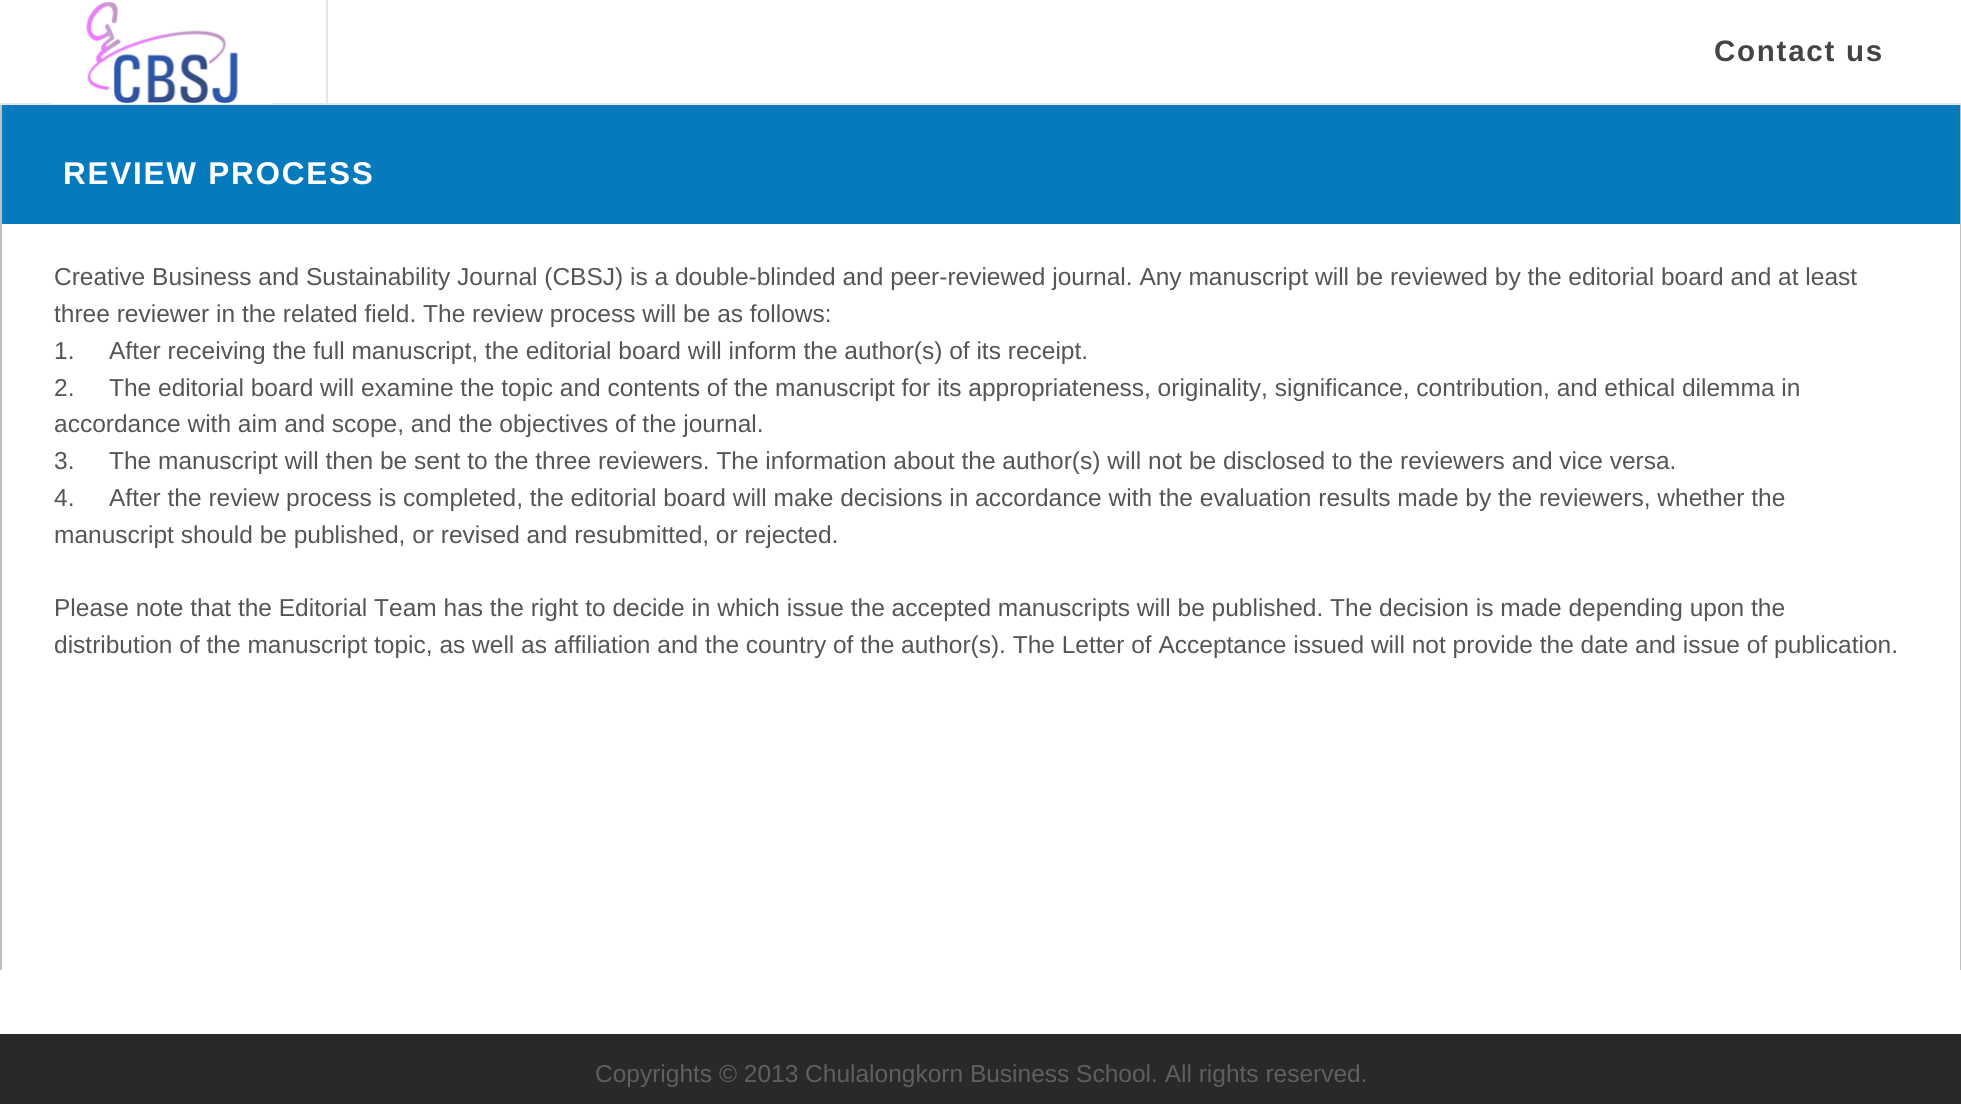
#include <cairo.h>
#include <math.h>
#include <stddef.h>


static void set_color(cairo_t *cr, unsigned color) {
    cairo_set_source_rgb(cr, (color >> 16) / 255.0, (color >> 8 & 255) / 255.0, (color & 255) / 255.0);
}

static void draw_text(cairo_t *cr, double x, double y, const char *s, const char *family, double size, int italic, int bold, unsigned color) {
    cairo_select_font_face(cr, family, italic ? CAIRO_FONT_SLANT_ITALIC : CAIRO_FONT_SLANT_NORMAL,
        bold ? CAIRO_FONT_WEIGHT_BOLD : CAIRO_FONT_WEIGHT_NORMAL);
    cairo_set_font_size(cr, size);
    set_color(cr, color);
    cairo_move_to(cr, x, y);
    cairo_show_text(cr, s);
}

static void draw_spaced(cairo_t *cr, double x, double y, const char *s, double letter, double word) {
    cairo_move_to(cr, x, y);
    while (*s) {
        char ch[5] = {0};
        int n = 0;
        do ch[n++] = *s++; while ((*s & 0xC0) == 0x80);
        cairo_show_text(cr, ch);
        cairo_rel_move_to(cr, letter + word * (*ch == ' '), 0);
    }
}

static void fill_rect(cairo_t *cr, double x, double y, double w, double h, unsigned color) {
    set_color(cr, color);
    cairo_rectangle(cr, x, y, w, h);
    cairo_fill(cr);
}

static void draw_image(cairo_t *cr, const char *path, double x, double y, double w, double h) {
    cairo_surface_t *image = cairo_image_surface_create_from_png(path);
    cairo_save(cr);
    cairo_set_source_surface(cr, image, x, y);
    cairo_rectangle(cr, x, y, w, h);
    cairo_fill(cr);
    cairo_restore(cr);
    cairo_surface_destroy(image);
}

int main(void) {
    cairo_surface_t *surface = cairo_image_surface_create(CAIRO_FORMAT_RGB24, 1961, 1104);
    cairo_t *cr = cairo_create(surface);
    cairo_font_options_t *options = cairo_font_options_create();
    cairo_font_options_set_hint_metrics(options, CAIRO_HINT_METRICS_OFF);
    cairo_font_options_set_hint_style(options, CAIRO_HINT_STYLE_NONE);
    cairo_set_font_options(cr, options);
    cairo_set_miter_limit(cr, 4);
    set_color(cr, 0xFFFFFF);
    cairo_paint(cr);
    fill_rect(cr, 0, 103, 1961, 2, 0xE6E6E6);
    fill_rect(cr, 326, 0, 2, 103, 0xE6E6E6);
    draw_image(cr, "assets/img1.png", 52, 2, 221, 102);
    cairo_select_font_face(cr, "Liberation Sans", CAIRO_FONT_SLANT_NORMAL, CAIRO_FONT_WEIGHT_BOLD);
    cairo_set_font_size(cr, 29.5);
    set_color(cr, 0x444444);
    draw_spaced(cr, 1714, 61, "Contact us", 1.75, 0);
    fill_rect(cr, 1960, 105, 1, 865, 0xC0C0C0);
    fill_rect(cr, 0, 105, 2, 865, 0xC0C0C0);
    fill_rect(cr, 2, 105, 1958, 119, 0x057ABD);
    cairo_set_font_size(cr, 31.5);
    set_color(cr, 0xFFFFFF);
    draw_spaced(cr, 63, 184, "REVIEW PROCESS", 1.75, 0);
    draw_text(cr, 54, 285, "Creative Business and Sustainability Journal (CBSJ) is a double-blinded and peer-reviewed journal. Any manuscript will be reviewed by the editorial board and at least", "Liberation Sans", 24.5, 0, 0, 0x555555);
    draw_text(cr, 54, 322, "three reviewer in the related field. The review process will be as follows:", "Liberation Sans", 24.5, 0, 0, 0x555555);
    draw_text(cr, 54, 359, "1.", "Liberation Sans", 24.5, 0, 0, 0x555555);
    draw_text(cr, 109, 359, "After receiving the full manuscript, the editorial board will inform the author(s) of its receipt.", "Liberation Sans", 24.5, 0, 0, 0x555555);
    draw_text(cr, 54, 396, "2.", "Liberation Sans", 24.5, 0, 0, 0x555555);
    draw_text(cr, 109, 396, "The editorial board will examine the topic and contents of the manuscript for its appropriateness, originality, significance, contribution, and ethical dilemma in", "Liberation Sans", 24.5, 0, 0, 0x555555);
    draw_text(cr, 54, 432, "accordance with aim and scope, and the objectives of the journal.", "Liberation Sans", 24.5, 0, 0, 0x555555);
    draw_text(cr, 54, 469, "3.", "Liberation Sans", 24.5, 0, 0, 0x555555);
    draw_text(cr, 109, 469, "The manuscript will then be sent to the three reviewers. The information about the author(s) will not be disclosed to the reviewers and vice versa.", "Liberation Sans", 24.5, 0, 0, 0x555555);
    draw_text(cr, 54, 506, "4.", "Liberation Sans", 24.5, 0, 0, 0x555555);
    draw_text(cr, 109, 506, "After the review process is completed, the editorial board will make decisions in accordance with the evaluation results made by the reviewers, whether the", "Liberation Sans", 24.5, 0, 0, 0x555555);
    draw_text(cr, 54, 543, "manuscript should be published, or revised and resubmitted, or rejected.", "Liberation Sans", 24.5, 0, 0, 0x555555);
    draw_text(cr, 54, 616, "Please note that the Editorial Team has the right to decide in which issue the accepted manuscripts will be published. The decision is made depending upon the", "Liberation Sans", 24.5, 0, 0, 0x555555);
    draw_text(cr, 54, 653, "distribution of the manuscript topic, as well as affiliation and the country of the author(s). The Letter of Acceptance issued will not provide the date and issue of publication.", "Liberation Sans", 24.5, 0, 0, 0x555555);
    fill_rect(cr, 0, 1034, 1961, 70, 0x292929);
    draw_text(cr, 595, 1082, "Copyrights © 2013 Chulalongkorn Business School. All rights reserved.", "Liberation Sans", 24.5, 0, 0, 0x5F5F5F);
    cairo_surface_write_to_png(surface, "output.png");
    cairo_font_options_destroy(options);
    cairo_destroy(cr);
    cairo_surface_destroy(surface);
    return 0;
}
